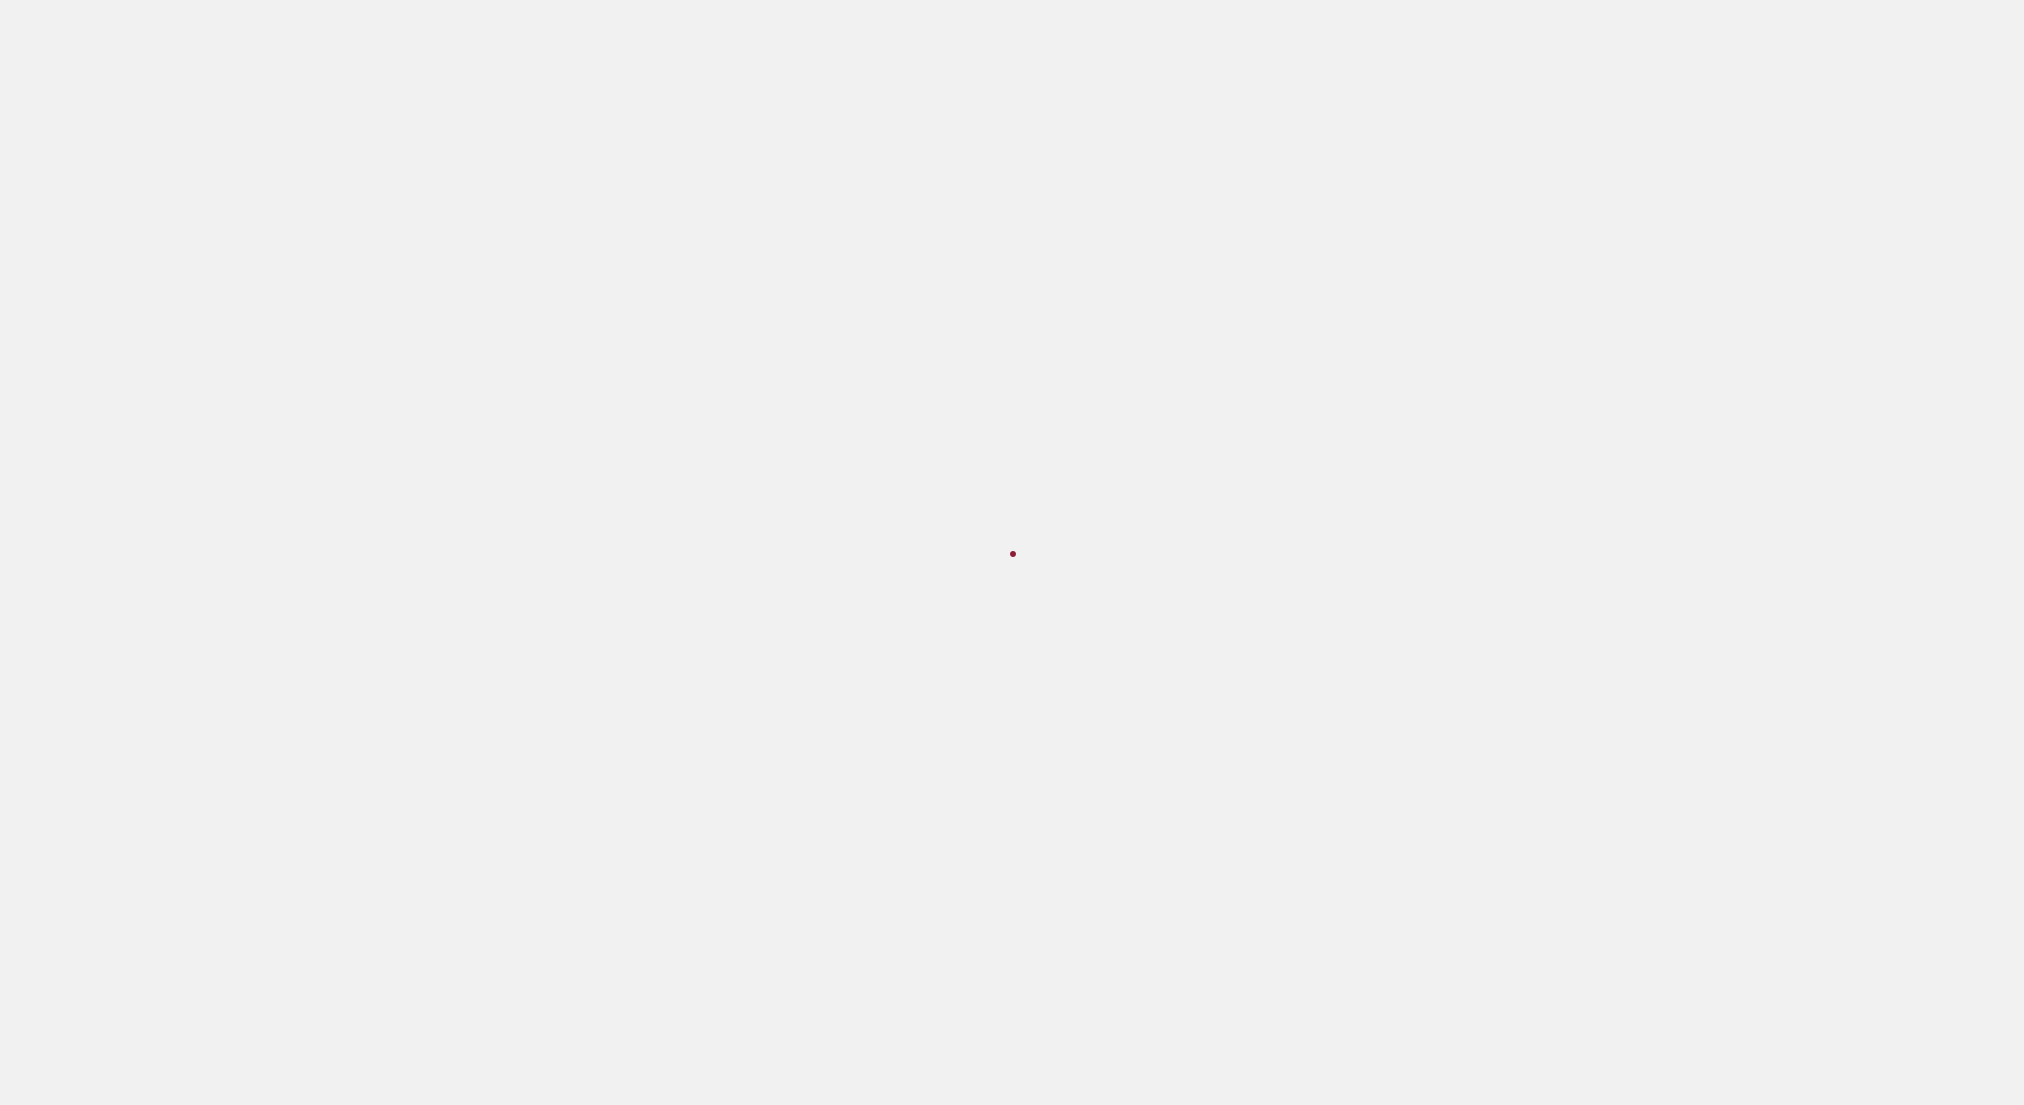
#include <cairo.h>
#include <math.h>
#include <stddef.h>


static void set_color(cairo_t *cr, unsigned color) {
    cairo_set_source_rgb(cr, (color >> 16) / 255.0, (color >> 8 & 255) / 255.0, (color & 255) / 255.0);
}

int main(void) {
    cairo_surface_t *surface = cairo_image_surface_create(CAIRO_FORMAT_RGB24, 2024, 1105);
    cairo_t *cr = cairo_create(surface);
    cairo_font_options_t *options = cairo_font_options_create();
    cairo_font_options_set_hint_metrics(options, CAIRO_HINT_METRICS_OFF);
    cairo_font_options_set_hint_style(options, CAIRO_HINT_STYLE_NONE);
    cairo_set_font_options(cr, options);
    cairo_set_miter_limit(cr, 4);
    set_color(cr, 0xF1F1F1);
    cairo_paint(cr);
    set_color(cr, 0x8C1F37);
    cairo_arc(cr, 1013, 554, 3, 0, 2 * M_PI);
    cairo_fill(cr);
    cairo_surface_write_to_png(surface, "output.png");
    cairo_font_options_destroy(options);
    cairo_destroy(cr);
    cairo_surface_destroy(surface);
    return 0;
}
